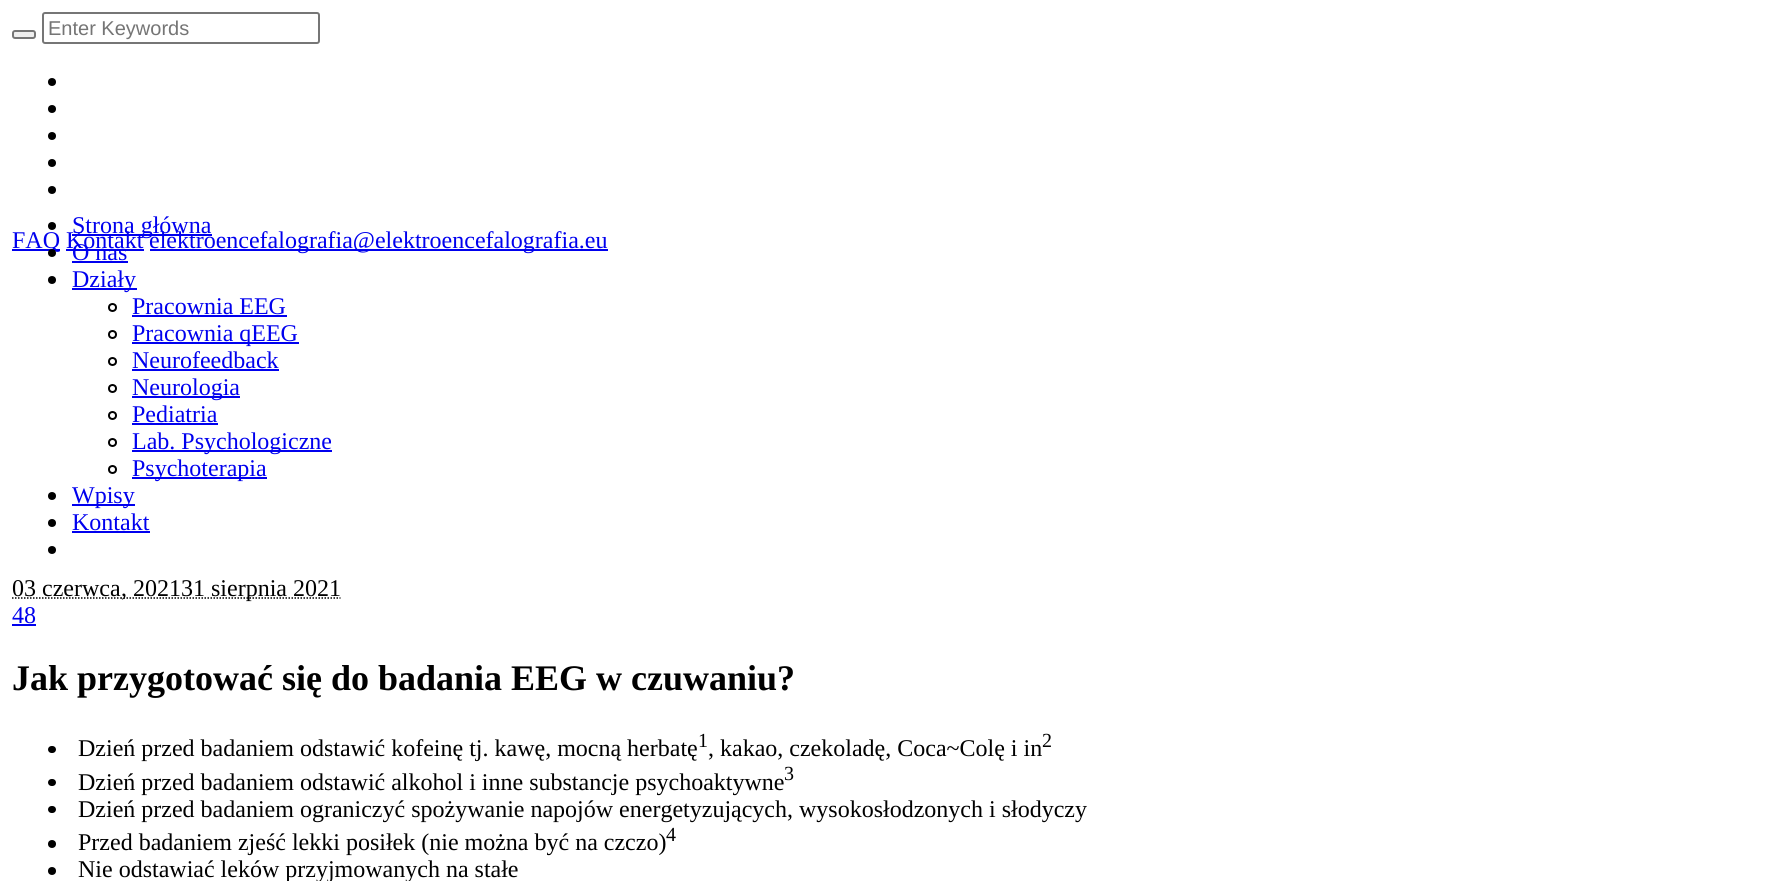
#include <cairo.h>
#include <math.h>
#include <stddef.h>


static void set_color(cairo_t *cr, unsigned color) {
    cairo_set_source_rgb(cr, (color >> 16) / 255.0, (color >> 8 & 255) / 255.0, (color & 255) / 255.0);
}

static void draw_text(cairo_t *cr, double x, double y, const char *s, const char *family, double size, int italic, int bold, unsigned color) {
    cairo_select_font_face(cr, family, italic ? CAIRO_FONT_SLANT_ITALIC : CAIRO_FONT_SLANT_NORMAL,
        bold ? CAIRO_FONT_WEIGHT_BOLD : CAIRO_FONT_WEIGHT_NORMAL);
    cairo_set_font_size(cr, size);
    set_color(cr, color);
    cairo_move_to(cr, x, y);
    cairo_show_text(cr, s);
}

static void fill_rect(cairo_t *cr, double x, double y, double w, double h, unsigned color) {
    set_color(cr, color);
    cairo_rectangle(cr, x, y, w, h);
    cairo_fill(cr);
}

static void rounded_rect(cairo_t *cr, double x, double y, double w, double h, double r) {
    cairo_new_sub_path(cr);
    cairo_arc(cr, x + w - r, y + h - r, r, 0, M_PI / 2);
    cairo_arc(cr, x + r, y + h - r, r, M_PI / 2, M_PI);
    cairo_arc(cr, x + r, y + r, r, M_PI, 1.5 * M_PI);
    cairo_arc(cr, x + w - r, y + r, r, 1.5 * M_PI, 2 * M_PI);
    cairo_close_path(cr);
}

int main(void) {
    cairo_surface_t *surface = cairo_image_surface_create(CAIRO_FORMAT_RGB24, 1771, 881);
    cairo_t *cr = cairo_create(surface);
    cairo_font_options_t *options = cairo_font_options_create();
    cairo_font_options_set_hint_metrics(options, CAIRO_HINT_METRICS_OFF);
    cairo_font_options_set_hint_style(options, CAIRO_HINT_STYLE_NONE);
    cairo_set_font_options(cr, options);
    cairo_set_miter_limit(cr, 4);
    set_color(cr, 0xFFFFFF);
    cairo_paint(cr);
    set_color(cr, 0xEFEFEF);
    rounded_rect(cr, 13, 31, 22, 7, 2);
    cairo_fill_preserve(cr);
    set_color(cr, 0x767676);
    cairo_stroke(cr);
    rounded_rect(cr, 43, 13, 276, 30, 2);
    cairo_stroke(cr);
    draw_text(cr, 48, 35, "Enter Keywords", "Liberation Sans", 20, 0, 0, 0x757575);
    set_color(cr, 0x000000);
    cairo_new_path(cr);
    cairo_arc(cr, 52, 226, 4, 0, 2 * M_PI);
    cairo_fill(cr);
    fill_rect(cr, 72, 234, 140, 2, 0x0000EE);
    draw_text(cr, 72, 233, "Strona główna", "Liberation Serif", 24, 0, 0, 0x0000EE);
    fill_rect(cr, 12, 249, 48, 2, 0x0000EE);
    draw_text(cr, 12, 248, "FAQ Kontakt", "Liberation Serif", 24, 0, 0, 0x0000EE);
    set_color(cr, 0x000000);
    cairo_new_path(cr);
    cairo_arc(cr, 52, 253, 4, 0, 2 * M_PI);
    cairo_fill(cr);
    fill_rect(cr, 66, 249, 78, 2, 0x0000EE);
    draw_text(cr, 72, 260, "O nas", "Liberation Serif", 24, 0, 0, 0x0000EE);
    fill_rect(cr, 72, 261, 56, 2, 0x0000EE);
    set_color(cr, 0x000000);
    cairo_new_path(cr);
    cairo_arc(cr, 52, 280, 4, 0, 2 * M_PI);
    cairo_fill(cr);
    fill_rect(cr, 72, 288, 65, 2, 0x0000EE);
    draw_text(cr, 72, 287, "Działy", "Liberation Serif", 24, 0, 0, 0x0000EE);
    cairo_new_path(cr);
    cairo_arc(cr, 112.5, 307.5, 3.5, 0, 2 * M_PI);
    set_color(cr, 0x000000);
    cairo_stroke(cr);
    draw_text(cr, 132, 314, "Pracownia EEG", "Liberation Serif", 24, 0, 0, 0x0000EE);
    fill_rect(cr, 132, 315, 155, 2, 0x0000EE);
    cairo_new_path(cr);
    cairo_arc(cr, 112.5, 334.5, 3.5, 0, 2 * M_PI);
    set_color(cr, 0x000000);
    cairo_stroke(cr);
    fill_rect(cr, 132, 342, 167, 2, 0x0000EE);
    draw_text(cr, 132, 341, "Pracownia qEEG", "Liberation Serif", 24, 0, 0, 0x0000EE);
    cairo_new_path(cr);
    cairo_arc(cr, 112.5, 361.5, 3.5, 0, 2 * M_PI);
    set_color(cr, 0x000000);
    cairo_stroke(cr);
    draw_text(cr, 132, 368, "Neurofeedback", "Liberation Serif", 24, 0, 0, 0x0000EE);
    fill_rect(cr, 132, 369, 147, 2, 0x0000EE);
    cairo_new_path(cr);
    cairo_arc(cr, 112.5, 388.5, 3.5, 0, 2 * M_PI);
    set_color(cr, 0x000000);
    cairo_stroke(cr);
    fill_rect(cr, 132, 396, 108, 2, 0x0000EE);
    draw_text(cr, 132, 395, "Neurologia", "Liberation Serif", 24, 0, 0, 0x0000EE);
    cairo_new_path(cr);
    cairo_arc(cr, 112.5, 415.5, 3.5, 0, 2 * M_PI);
    set_color(cr, 0x000000);
    cairo_stroke(cr);
    draw_text(cr, 132, 422, "Pediatria", "Liberation Serif", 24, 0, 0, 0x0000EE);
    fill_rect(cr, 132, 423, 86, 2, 0x0000EE);
    cairo_new_path(cr);
    cairo_arc(cr, 112.5, 442.5, 3.5, 0, 2 * M_PI);
    set_color(cr, 0x000000);
    cairo_stroke(cr);
    fill_rect(cr, 132, 450, 200, 2, 0x0000EE);
    draw_text(cr, 132, 449, "Lab. Psychologiczne", "Liberation Serif", 24, 0, 0, 0x0000EE);
    cairo_new_path(cr);
    cairo_arc(cr, 112.5, 469.5, 3.5, 0, 2 * M_PI);
    set_color(cr, 0x000000);
    cairo_stroke(cr);
    fill_rect(cr, 132, 477, 135, 2, 0x0000EE);
    draw_text(cr, 132, 476, "Psychoterapia", "Liberation Serif", 24, 0, 0, 0x0000EE);
    set_color(cr, 0x000000);
    cairo_new_path(cr);
    cairo_arc(cr, 52, 496, 4, 0, 2 * M_PI);
    cairo_fill(cr);
    fill_rect(cr, 72, 504, 63, 2, 0x0000EE);
    draw_text(cr, 72, 503, "Wpisy", "Liberation Serif", 24, 0, 0, 0x0000EE);
    set_color(cr, 0x000000);
    cairo_new_path(cr);
    cairo_arc(cr, 52, 523, 4, 0, 2 * M_PI);
    cairo_fill(cr);
    draw_text(cr, 72, 530, "Kontakt", "Liberation Serif", 24, 0, 0, 0x0000EE);
    fill_rect(cr, 72, 531, 78, 2, 0x0000EE);
    set_color(cr, 0x000000);
    cairo_new_path(cr);
    cairo_arc(cr, 52, 550, 4, 0, 2 * M_PI);
    cairo_fill(cr);
    cairo_arc(cr, 52, 82, 4, 0, 2 * M_PI);
    cairo_fill(cr);
    cairo_arc(cr, 52, 109, 4, 0, 2 * M_PI);
    cairo_fill(cr);
    cairo_arc(cr, 52, 136, 4, 0, 2 * M_PI);
    cairo_fill(cr);
    cairo_arc(cr, 52, 163, 4, 0, 2 * M_PI);
    cairo_fill(cr);
    cairo_arc(cr, 52, 190, 4, 0, 2 * M_PI);
    cairo_fill(cr);
    fill_rect(cr, 150, 249, 458, 2, 0x0000EE);
    draw_text(cr, 149, 248, "elektroencefalografia@elektroencefalografia.eu", "Liberation Serif", 24, 0, 0, 0x0000EE);
    draw_text(cr, 12, 596, "03 czerwca", "Liberation Serif", 24, 0, 0, 0x000000);
    cairo_new_path(cr);
    cairo_move_to(cr, 12, 598);
    cairo_line_to(cr, 120.5, 598);
    cairo_set_line_width(cr, 1.5);
    cairo_set_dash(cr, (double[]){1.5, 1.5}, 2, 0);
    cairo_stroke(cr);
    cairo_new_path(cr);
    cairo_move_to(cr, 120.5, 598);
    cairo_line_to(cr, 180.5, 598);
    cairo_stroke(cr);
    draw_text(cr, 121, 596, ", 2021", "Liberation Serif", 24, 0, 0, 0x000000);
    cairo_new_path(cr);
    cairo_move_to(cr, 180.5, 598);
    cairo_line_to(cr, 340.5, 598);
    cairo_stroke(cr);
    draw_text(cr, 181, 596, "31 sierpnia 2021", "Liberation Serif", 24, 0, 0, 0x000000);
    draw_text(cr, 12, 623, "48", "Liberation Serif", 24, 0, 0, 0x0000EE);
    fill_rect(cr, 12, 624, 24, 2, 0x0000EE);
    draw_text(cr, 12, 690, "Jak przygotować się do badania EEG w czuwaniu?", "Liberation Serif", 36, 0, 1, 0x000000);
    rounded_rect(cr, 48, 746, 8, 7, 3.5);
    cairo_fill(cr);
    draw_text(cr, 78, 756, "Dzień przed badaniem odstawić kofeinę tj. kawę, mocną herbatę", "Liberation Serif", 24, 0, 0, 0x000000);
    draw_text(cr, 698, 747, "1", "Liberation Serif", 20, 0, 0, 0x000000);
    draw_text(cr, 708, 756, ", kakao, czekoladę, Coca~Colę i in", "Liberation Serif", 24, 0, 0, 0x000000);
    draw_text(cr, 1042, 747, "2", "Liberation Serif", 20, 0, 0, 0x000000);
    rounded_rect(cr, 48, 779, 8, 7, 3.5);
    cairo_fill(cr);
    draw_text(cr, 78, 790, "Dzień przed badaniem odstawić alkohol i inne substancje psychoaktywne", "Liberation Serif", 24, 0, 0, 0x000000);
    draw_text(cr, 784, 780, "3", "Liberation Serif", 20, 0, 0, 0x000000);
    rounded_rect(cr, 48, 806, 8, 7, 3.5);
    cairo_fill(cr);
    draw_text(cr, 78, 817, "Dzień przed badaniem ograniczyć spożywanie napojów energetyzujących, wysokosłodzonych i słodyczy", "Liberation Serif", 24, 0, 0, 0x000000);
    cairo_new_path(cr);
    cairo_arc(cr, 52, 844, 4, 0, 2 * M_PI);
    cairo_fill(cr);
    draw_text(cr, 78, 850, "Przed badaniem zjeść lekki posiłek (nie można być na czczo)", "Liberation Serif", 24, 0, 0, 0x000000);
    draw_text(cr, 666, 841, "4", "Liberation Serif", 20, 0, 0, 0x000000);
    cairo_new_path(cr);
    cairo_arc(cr, 52, 871, 4, 0, 2 * M_PI);
    cairo_fill(cr);
    draw_text(cr, 78, 877, "Nie odstawiać leków przyjmowanych na stałe", "Liberation Serif", 24, 0, 0, 0x000000);
    cairo_surface_write_to_png(surface, "output.png");
    cairo_font_options_destroy(options);
    cairo_destroy(cr);
    cairo_surface_destroy(surface);
    return 0;
}
